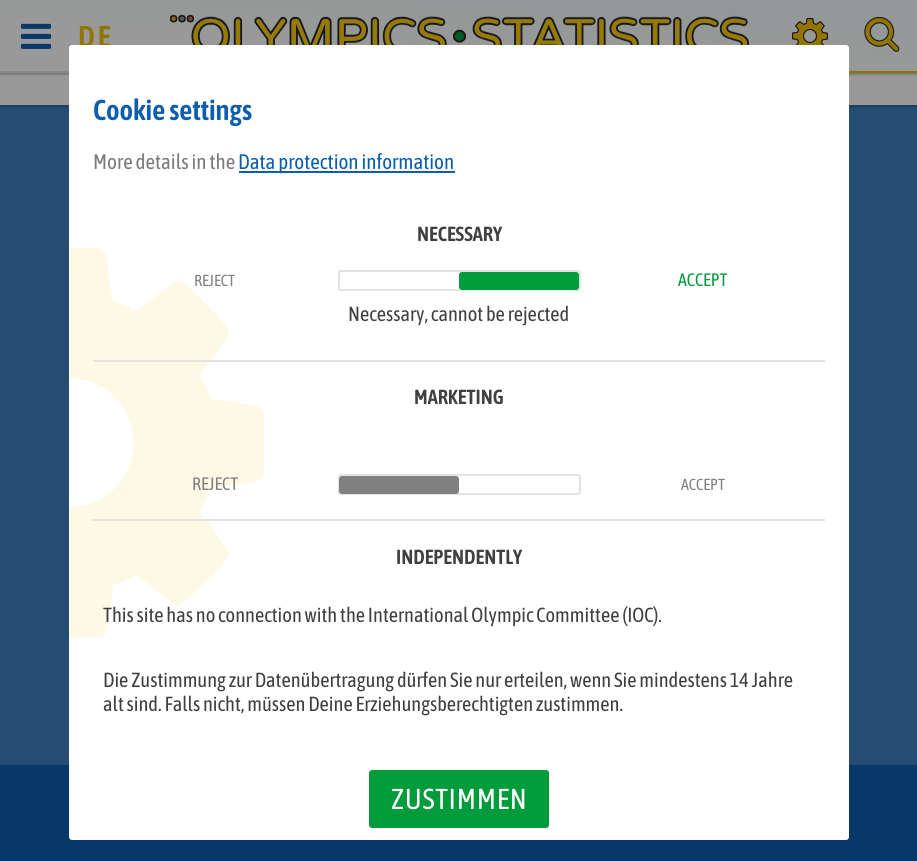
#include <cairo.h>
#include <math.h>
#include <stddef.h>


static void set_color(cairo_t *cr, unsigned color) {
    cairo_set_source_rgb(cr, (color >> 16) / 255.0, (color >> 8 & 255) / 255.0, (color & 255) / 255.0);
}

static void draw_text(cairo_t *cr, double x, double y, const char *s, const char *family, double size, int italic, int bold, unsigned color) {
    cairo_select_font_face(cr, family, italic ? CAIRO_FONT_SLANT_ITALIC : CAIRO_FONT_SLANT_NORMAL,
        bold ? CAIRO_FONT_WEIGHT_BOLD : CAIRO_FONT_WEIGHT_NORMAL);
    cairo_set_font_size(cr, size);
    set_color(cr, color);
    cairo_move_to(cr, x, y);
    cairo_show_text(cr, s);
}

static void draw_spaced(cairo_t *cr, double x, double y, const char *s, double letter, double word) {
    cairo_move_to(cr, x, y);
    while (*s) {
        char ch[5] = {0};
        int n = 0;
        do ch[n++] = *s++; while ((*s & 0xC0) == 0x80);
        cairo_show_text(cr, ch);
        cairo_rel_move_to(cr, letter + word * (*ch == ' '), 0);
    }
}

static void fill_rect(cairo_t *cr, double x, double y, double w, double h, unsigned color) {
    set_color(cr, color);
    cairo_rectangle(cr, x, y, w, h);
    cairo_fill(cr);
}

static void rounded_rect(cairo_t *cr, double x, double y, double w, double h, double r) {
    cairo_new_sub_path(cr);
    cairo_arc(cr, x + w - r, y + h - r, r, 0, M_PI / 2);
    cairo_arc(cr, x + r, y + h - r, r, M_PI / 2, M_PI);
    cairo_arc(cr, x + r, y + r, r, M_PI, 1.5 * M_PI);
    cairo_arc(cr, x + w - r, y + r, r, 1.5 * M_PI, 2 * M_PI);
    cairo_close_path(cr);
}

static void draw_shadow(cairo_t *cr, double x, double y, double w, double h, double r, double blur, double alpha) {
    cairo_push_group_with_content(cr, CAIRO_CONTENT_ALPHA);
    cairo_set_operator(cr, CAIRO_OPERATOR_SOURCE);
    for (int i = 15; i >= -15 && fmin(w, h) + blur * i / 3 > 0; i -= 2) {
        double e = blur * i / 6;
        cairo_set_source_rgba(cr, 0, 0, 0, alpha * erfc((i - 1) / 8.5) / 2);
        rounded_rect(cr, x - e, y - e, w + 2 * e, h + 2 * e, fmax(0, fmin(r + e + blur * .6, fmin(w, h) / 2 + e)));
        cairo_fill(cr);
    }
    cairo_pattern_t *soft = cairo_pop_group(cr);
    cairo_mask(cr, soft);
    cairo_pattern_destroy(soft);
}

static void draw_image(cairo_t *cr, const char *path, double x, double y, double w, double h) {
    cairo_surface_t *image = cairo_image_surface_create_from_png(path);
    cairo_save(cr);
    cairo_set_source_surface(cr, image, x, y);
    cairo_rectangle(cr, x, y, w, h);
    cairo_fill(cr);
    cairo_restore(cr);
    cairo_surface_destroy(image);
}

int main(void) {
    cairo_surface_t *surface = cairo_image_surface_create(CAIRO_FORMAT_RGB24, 917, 861);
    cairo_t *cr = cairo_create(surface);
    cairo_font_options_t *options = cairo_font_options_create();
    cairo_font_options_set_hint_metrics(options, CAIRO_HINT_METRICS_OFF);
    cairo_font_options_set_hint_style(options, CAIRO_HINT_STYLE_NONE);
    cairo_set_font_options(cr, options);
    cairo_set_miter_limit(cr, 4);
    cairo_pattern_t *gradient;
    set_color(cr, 0x999999);
    cairo_paint(cr);
    fill_rect(cr, 0, 105, 917, 660, 0x254C73);
    cairo_save(cr);
    cairo_rectangle(cr, 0, 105, 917, 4);
    cairo_clip(cr);
    set_color(cr, 0x000000);
    draw_shadow(cr, 0, -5, 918, 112, 0, 1.5, 0.24);
    cairo_restore(cr);
    set_color(cr, 0x000000);
    draw_shadow(cr, 0, 2, 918, 72, 0, 1.5, 0.24);
    draw_shadow(cr, 0, 2, 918, 72, 0, 2, 0.12);
    gradient = cairo_pattern_create_linear(454, 105, 464, -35);
    cairo_pattern_add_color_stop_rgba(gradient, 0, 0.596, 0.6, 0.596, 1);
    cairo_pattern_add_color_stop_rgba(gradient, 0.36, 0.596, 0.6, 0.596, 1);
    cairo_pattern_add_color_stop_rgba(gradient, 0.45, 0.592, 0.6, 0.596, 1);
    cairo_pattern_add_color_stop_rgba(gradient, 0.55, 0.592, 0.596, 0.596, 1);
    cairo_pattern_add_color_stop_rgba(gradient, 0.64, 0.588, 0.596, 0.596, 1);
    cairo_pattern_add_color_stop_rgba(gradient, 0.73, 0.584, 0.596, 0.596, 1);
    cairo_pattern_add_color_stop_rgba(gradient, 0.82, 0.58, 0.592, 0.596, 1);
    cairo_pattern_add_color_stop_rgba(gradient, 0.91, 0.58, 0.592, 0.6, 1);
    cairo_pattern_add_color_stop_rgba(gradient, 1, 0.58, 0.588, 0.6, 1);
    cairo_set_source(cr, gradient);
    cairo_pattern_destroy(gradient);
    cairo_rectangle(cr, 0, 0, 917, 71);
    cairo_fill(cr);
    fill_rect(cr, 0, 71, 69, 2, 0x888888);
    draw_image(cr, "assets/img1.png", 20, 23, 32, 26);
    cairo_select_font_face(cr, "Asap Condensed SemiBold", CAIRO_FONT_SLANT_NORMAL, CAIRO_FONT_WEIGHT_NORMAL);
    cairo_set_font_size(cr, 30);
    set_color(cr, 0x927400);
    draw_spaced(cr, 78, 47, "DE", 3, 0);
    draw_image(cr, "assets/img2.png", 169, 14, 581, 31);
    draw_image(cr, "assets/img3.png", 792, 18, 36, 27);
    fill_rect(cr, 846, 71, 71, 2, 0x927400);
    draw_image(cr, "assets/img4.png", 864, 17, 36, 35);
    fill_rect(cr, 0, 765, 917, 96, 0x083869);
    set_color(cr, 0xFFFFFF);
    rounded_rect(cr, 69, 45, 780, 795, 3);
    cairo_fill(cr);
    draw_image(cr, "assets/img5.png", 69, 248, 195, 390);
    draw_text(cr, 93, 120, "Cookie settings", "Asap Condensed SemiBold", 28.75, 0, 0, 0x0D5EAF);
    draw_text(cr, 93, 169, "More details in the", "Asap Condensed", 21, 0, 0, 0x7C7A7A);
    fill_rect(cr, 239, 171, 216, 2, 0x0D5EAF);
    draw_text(cr, 238, 169, "Data protection information", "Asap Condensed", 21, 0, 0, 0x0D5EAF);
    draw_text(cr, 417, 241, "NECESSARY", "Asap Condensed SemiBold", 20.4, 0, 0, 0x404040);
    draw_text(cr, 194, 286, "REJECT", "Asap Condensed", 16, 0, 0, 0x808080);
    rounded_rect(cr, 339, 271, 241, 19, 2);
    set_color(cr, 0xE3E3E3);
    cairo_stroke(cr);
    set_color(cr, 0x009B3A);
    rounded_rect(cr, 459, 272, 120, 18, 3);
    cairo_fill(cr);
    draw_text(cr, 678, 286, "ACCEPT", "Asap Condensed", 18, 0, 0, 0x009B3A);
    draw_text(cr, 348, 321, "Necessary, cannot be rejected", "Asap Condensed", 20.4, 0, 0, 0x404040);
    fill_rect(cr, 93, 360, 732, 2, 0xE3E3E3);
    draw_text(cr, 414, 404, "MARKETING", "Asap Condensed SemiBold", 20.4, 0, 0, 0x404040);
    draw_text(cr, 192, 490, "REJECT", "Asap Condensed", 18, 0, 0, 0x808080);
    rounded_rect(cr, 339, 475, 241, 19, 2);
    set_color(cr, 0xE3E3E3);
    cairo_stroke(cr);
    set_color(cr, 0x808080);
    rounded_rect(cr, 339, 476, 120, 18, 3);
    cairo_fill(cr);
    draw_text(cr, 681, 490, "ACCEPT", "Asap Condensed", 16, 0, 0, 0x808080);
    fill_rect(cr, 93, 519, 732, 2, 0xE3E3E3);
    draw_text(cr, 396, 564, "INDEPENDENTLY", "Asap Condensed SemiBold", 20.4, 0, 0, 0x404040);
    draw_text(cr, 103, 622, "This site has no connection with the International Olympic Committee (IOC).", "Asap Condensed", 20.4, 0, 0, 0x404040);
    draw_text(cr, 103, 687, "Die Zustimmung zur Datenübertragung dürfen Sie nur erteilen, wenn Sie mindestens 14 Jahre", "Asap Condensed", 20.4, 0, 0, 0x404040);
    draw_text(cr, 103, 711, "alt sind. Falls nicht, müssen Deine Erziehungsberechtigten zustimmen.", "Asap Condensed", 20.4, 0, 0, 0x404040);
    set_color(cr, 0x009B3A);
    rounded_rect(cr, 369, 770, 180, 58, 3);
    cairo_fill(cr);
    cairo_set_font_size(cr, 28.75);
    set_color(cr, 0xFFFFFF);
    draw_spaced(cr, 391, 809, "ZUSTIMMEN", 0.75, 0);
    cairo_surface_write_to_png(surface, "output.png");
    cairo_font_options_destroy(options);
    cairo_destroy(cr);
    cairo_surface_destroy(surface);
    return 0;
}
